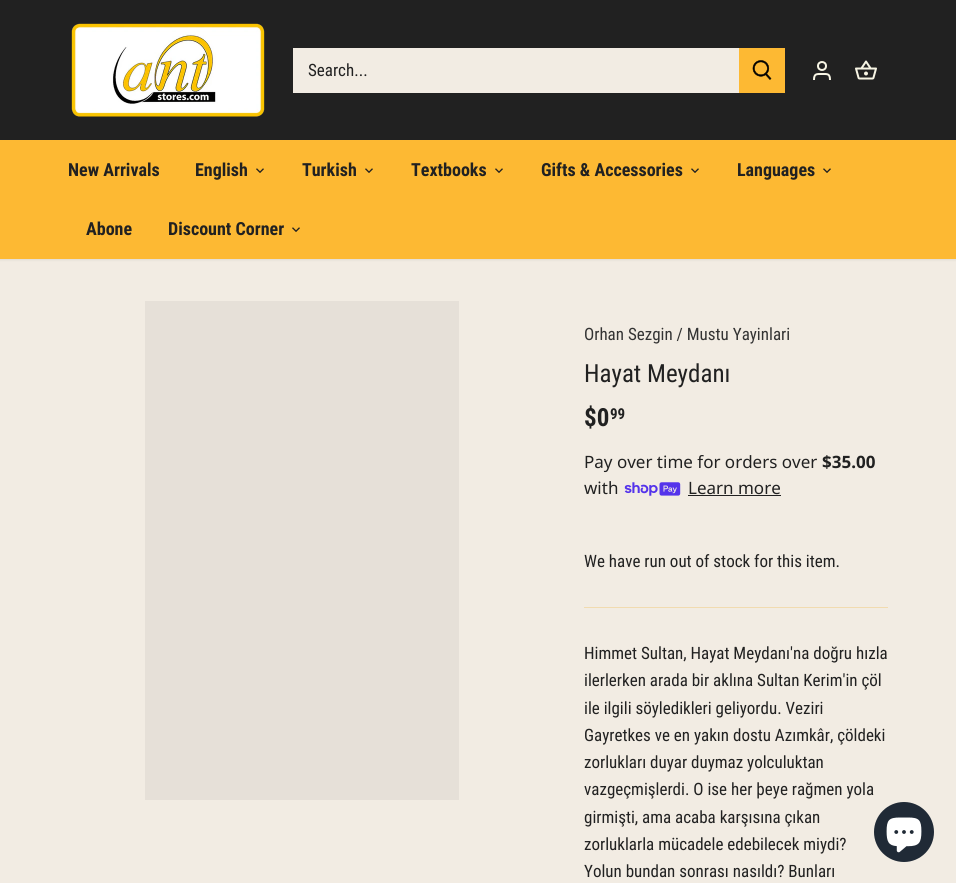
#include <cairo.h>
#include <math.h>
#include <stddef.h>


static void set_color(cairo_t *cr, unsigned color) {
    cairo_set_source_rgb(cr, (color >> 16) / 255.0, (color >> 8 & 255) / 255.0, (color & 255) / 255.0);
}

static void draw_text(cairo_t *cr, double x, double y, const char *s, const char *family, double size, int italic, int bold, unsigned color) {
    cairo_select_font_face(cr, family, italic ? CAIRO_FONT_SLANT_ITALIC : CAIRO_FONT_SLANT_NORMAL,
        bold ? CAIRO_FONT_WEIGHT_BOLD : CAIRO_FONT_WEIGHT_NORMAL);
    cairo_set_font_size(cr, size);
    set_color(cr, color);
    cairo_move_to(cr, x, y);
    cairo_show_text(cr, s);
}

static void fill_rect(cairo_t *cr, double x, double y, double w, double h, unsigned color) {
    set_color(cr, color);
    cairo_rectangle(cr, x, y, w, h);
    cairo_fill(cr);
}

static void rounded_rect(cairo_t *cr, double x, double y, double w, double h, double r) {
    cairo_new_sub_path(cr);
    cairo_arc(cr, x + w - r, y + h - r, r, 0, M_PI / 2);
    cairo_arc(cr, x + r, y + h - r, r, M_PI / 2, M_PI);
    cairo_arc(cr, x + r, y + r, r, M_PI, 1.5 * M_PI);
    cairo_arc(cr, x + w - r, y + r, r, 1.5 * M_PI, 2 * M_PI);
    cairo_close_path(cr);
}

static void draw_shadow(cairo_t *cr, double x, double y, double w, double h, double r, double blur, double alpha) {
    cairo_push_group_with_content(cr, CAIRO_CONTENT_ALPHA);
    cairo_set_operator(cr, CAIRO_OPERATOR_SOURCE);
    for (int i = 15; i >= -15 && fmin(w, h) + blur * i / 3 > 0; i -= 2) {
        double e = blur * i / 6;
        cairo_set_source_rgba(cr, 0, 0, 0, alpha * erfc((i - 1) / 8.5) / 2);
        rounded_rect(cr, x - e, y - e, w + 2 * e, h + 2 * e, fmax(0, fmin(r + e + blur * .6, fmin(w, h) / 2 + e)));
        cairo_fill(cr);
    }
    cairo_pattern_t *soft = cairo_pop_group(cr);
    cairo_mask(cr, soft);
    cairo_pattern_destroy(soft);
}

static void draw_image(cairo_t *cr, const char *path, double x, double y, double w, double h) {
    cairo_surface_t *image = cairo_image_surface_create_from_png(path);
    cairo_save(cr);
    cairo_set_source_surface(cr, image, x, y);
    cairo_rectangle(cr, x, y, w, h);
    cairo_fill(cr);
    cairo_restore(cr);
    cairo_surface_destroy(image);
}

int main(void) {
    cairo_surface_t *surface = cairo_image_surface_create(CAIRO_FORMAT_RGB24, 956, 883);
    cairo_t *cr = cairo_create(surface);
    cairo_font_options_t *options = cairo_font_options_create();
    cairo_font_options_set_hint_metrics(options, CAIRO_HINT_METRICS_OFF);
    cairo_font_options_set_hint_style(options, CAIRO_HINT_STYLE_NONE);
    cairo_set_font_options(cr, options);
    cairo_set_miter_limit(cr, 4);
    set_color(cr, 0xF2ECE3);
    cairo_paint(cr);
    set_color(cr, 0x000000);
    draw_shadow(cr, -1, -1, 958, 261, 0, 1.5, 0.08);
    fill_rect(cr, 0, 140, 956, 119, 0xFDB933);
    fill_rect(cr, 0, 0, 956, 140, 0x212121);
    draw_image(cr, "assets/img1.png", 71, 23, 194, 94);
    fill_rect(cr, 293, 48, 446, 45, 0xF2ECE3);
    draw_text(cr, 308, 76, "Search...", "Roboto Condensed", 17, 0, 0, 0x212121);
    fill_rect(cr, 739, 48, 46, 45, 0xFDB933);
    draw_image(cr, "assets/img2.png", 752, 60, 20, 20);
    cairo_arc(cr, 822, 66, 4, 0, 2 * M_PI);
    set_color(cr, 0xF7F5E4);
    cairo_stroke(cr);
    cairo_new_path(cr);
    cairo_move_to(cr, 830, 80);
    cairo_curve_to(cr, 830, 73.5, 827.5, 74, 822, 74);
    cairo_curve_to(cr, 816.5, 74, 814, 73.5, 814, 80);
    cairo_stroke(cr);
    draw_image(cr, "assets/img3.png", 855, 60, 22, 20);
    draw_text(cr, 68, 176, "New Arrivals", "Roboto Condensed", 18, 0, 1, 0x212121);
    draw_text(cr, 195, 176, "English", "Roboto Condensed", 18, 0, 1, 0x212121);
    draw_image(cr, "assets/img4.png", 256, 168, 8, 5);
    draw_text(cr, 302, 176, "Turkish", "Roboto Condensed", 18, 0, 1, 0x212121);
    draw_image(cr, "assets/img4.png", 365, 168, 8, 5);
    draw_text(cr, 411, 176, "Textbooks", "Roboto Condensed", 18, 0, 1, 0x212121);
    draw_image(cr, "assets/img4.png", 495, 168, 8, 5);
    draw_text(cr, 541, 176, "Gifts & Accessories", "Roboto Condensed", 18, 0, 1, 0x212121);
    draw_image(cr, "assets/img4.png", 691, 168, 8, 5);
    draw_text(cr, 737, 176, "Languages", "Roboto Condensed", 18, 0, 1, 0x212121);
    draw_image(cr, "assets/img4.png", 823, 168, 8, 5);
    draw_text(cr, 86, 235, "Abone", "Roboto Condensed", 18, 0, 1, 0x212121);
    draw_text(cr, 168, 235, "Discount Corner", "Roboto Condensed", 18, 0, 1, 0x212121);
    draw_image(cr, "assets/img4.png", 292, 227, 8, 5);
    fill_rect(cr, 145, 301, 314, 499, 0xE6E0D8);
    draw_text(cr, 584, 340, "Orhan Sezgin / Mustu Yayinlari", "Roboto Condensed", 17, 0, 0, 0x333333);
    draw_text(cr, 584, 382, "Hayat Meydanı", "Roboto Condensed", 25, 0, 0, 0x212121);
    draw_text(cr, 584, 426, "$0", "Roboto Condensed", 25, 0, 1, 0x212121);
    draw_text(cr, 610, 419, "99", "Roboto Condensed", 15, 0, 1, 0x212121);
    draw_text(cr, 584, 468, "Pay over time for orders over", "Noto Sans", 17, 0, 0, 0x212121);
    draw_text(cr, 822, 468, "$35.00", "Noto Sans", 17, 0, 1, 0x212121);
    draw_text(cr, 584, 494, "with", "Noto Sans", 17, 0, 0, 0x212121);
    draw_image(cr, "assets/img5.png", 624, 482, 57, 14);
    draw_text(cr, 688, 494, "Learn more", "Noto Sans", 17, 0, 0, 0x212121);
    fill_rect(cr, 688, 495, 93, 1, 0x212121);
    draw_text(cr, 584, 567, "We have run out of stock for this item.", "Roboto Condensed", 17, 0, 0, 0x212121);
    fill_rect(cr, 584, 607, 304, 1, 0xF1DBB0);
    draw_text(cr, 584, 659, "Himmet Sultan, Hayat Meydanı'na doğru hızla", "Roboto Condensed", 17, 0, 0, 0x212121);
    draw_text(cr, 584, 686, "ilerlerken arada bir aklına Sultan Kerim'in çöl", "Roboto Condensed", 17, 0, 0, 0x212121);
    draw_text(cr, 584, 714, "ile ilgili söyledikleri geliyordu. Veziri", "Roboto Condensed", 17, 0, 0, 0x212121);
    draw_text(cr, 584, 741, "Gayretkes ve en yakın dostu Azımkâr, çöldeki", "Roboto Condensed", 17, 0, 0, 0x212121);
    draw_text(cr, 584, 768, "zorlukları duyar duymaz yolculuktan", "Roboto Condensed", 17, 0, 0, 0x212121);
    draw_text(cr, 584, 795, "vazgeçmişlerdi. O ise her þeye rağmen yola", "Roboto Condensed", 17, 0, 0, 0x212121);
    draw_text(cr, 584, 823, "girmişti, ama acaba karşısına çıkan", "Roboto Condensed", 17, 0, 0, 0x212121);
    draw_text(cr, 584, 850, "zorluklarla mücadele edebilecek miydi?", "Roboto Condensed", 17, 0, 0, 0x212121);
    draw_text(cr, 584, 877, "Yolun bundan sonrası nasıldı? Bunları", "Roboto Condensed", 17, 0, 0, 0x212121);
    set_color(cr, 0x202A36);
    cairo_new_path(cr);
    cairo_arc(cr, 904, 832, 30, 0, 2 * M_PI);
    cairo_fill(cr);
    draw_image(cr, "assets/img6.png", 886, 817, 36, 36);
    cairo_surface_write_to_png(surface, "output.png");
    cairo_font_options_destroy(options);
    cairo_destroy(cr);
    cairo_surface_destroy(surface);
    return 0;
}
